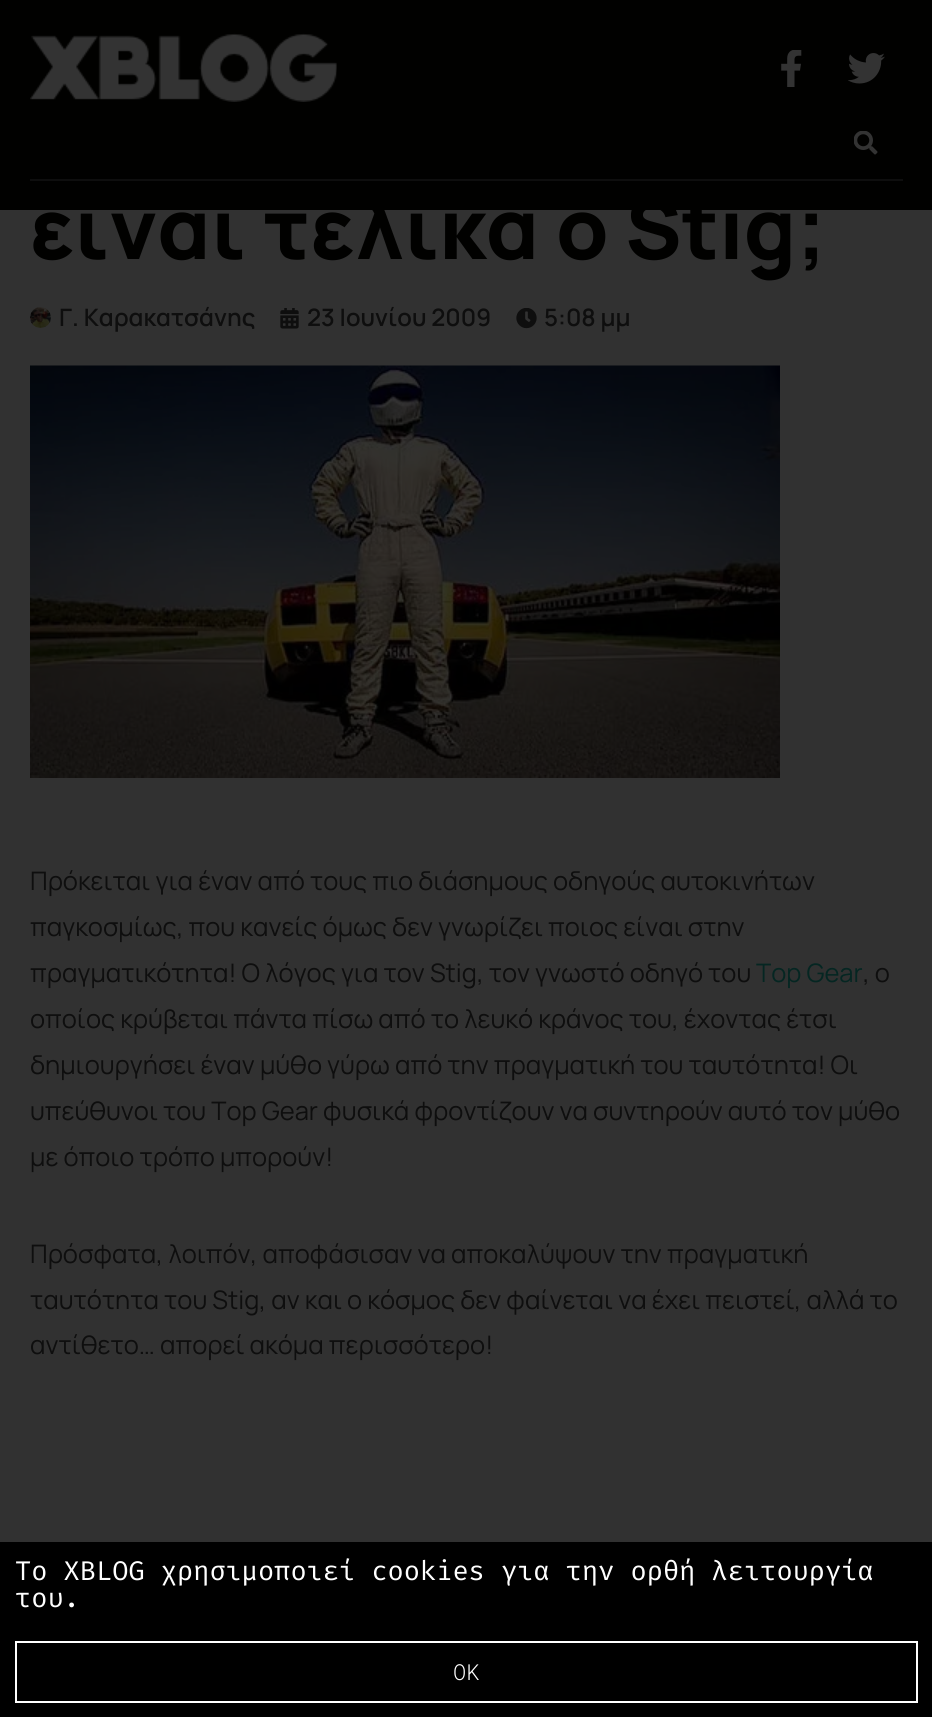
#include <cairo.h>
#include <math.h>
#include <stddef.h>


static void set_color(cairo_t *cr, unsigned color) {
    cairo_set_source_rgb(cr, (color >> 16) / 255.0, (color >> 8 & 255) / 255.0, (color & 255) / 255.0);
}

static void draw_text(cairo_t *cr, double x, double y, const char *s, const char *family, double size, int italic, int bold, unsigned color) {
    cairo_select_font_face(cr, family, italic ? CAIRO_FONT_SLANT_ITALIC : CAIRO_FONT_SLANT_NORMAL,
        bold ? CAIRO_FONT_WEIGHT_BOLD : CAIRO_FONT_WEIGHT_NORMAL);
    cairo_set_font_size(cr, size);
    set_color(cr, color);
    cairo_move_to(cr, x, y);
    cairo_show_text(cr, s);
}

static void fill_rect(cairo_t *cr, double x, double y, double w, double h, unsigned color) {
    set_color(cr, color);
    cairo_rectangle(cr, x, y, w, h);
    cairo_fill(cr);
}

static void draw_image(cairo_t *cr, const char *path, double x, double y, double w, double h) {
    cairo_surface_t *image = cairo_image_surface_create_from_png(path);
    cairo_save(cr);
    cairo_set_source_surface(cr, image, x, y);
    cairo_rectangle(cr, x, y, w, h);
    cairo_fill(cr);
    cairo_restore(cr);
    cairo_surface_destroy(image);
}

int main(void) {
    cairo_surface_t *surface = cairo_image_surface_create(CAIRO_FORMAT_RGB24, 932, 1717);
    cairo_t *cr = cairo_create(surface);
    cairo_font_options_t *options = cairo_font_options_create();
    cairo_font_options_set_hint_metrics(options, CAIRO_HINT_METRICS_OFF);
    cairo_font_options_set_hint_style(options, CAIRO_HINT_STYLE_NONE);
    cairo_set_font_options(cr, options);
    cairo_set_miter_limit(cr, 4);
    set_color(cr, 0x313131);
    cairo_paint(cr);
    fill_rect(cr, 0, 0, 932, 210, 0x010100);
    draw_image(cr, "assets/img1.png", 30, 33, 307, 69);
    draw_image(cr, "assets/img2.png", 781, 50, 21, 37);
    draw_image(cr, "assets/img3.png", 848, 53, 37, 31);
    fill_rect(cr, 30, 179, 873, 2, 0x0E0E0E);
    draw_image(cr, "assets/img4.png", 854, 131, 24, 24);
    draw_text(cr, 30, 259, "είναι τελικά ο Stig;", "Manrope ExtraBold", 84, 0, 0, 0x010100);
    draw_image(cr, "assets/img5.png", 30, 307, 21, 21);
    draw_text(cr, 59, 326, "Γ. Καρακατσάνης", "Manrope SemiBold", 24, 0, 0, 0x0E0E0E);
    draw_image(cr, "assets/img6.png", 280, 308, 19, 21);
    draw_text(cr, 307, 326, "23 Ιουνίου 2009", "Manrope SemiBold", 24, 0, 0, 0x0E0E0E);
    draw_image(cr, "assets/img7.png", 516, 308, 21, 21);
    draw_text(cr, 544, 326, "5:08 μμ", "Manrope SemiBold", 24, 0, 0, 0x0E0E0E);
    draw_image(cr, "assets/img8.png", 30, 365, 750, 413);
    draw_text(cr, 30, 890, "Πρόκειται για έναν από τους πιο διάσημους οδηγούς αυτοκινήτων", "Manrope", 25.5, 0, 0, 0x0E0E0E);
    draw_text(cr, 30, 936, "παγκοσμίως, που κανείς όμως δεν γνωρίζει ποιος είναι στην", "Manrope", 25.5, 0, 0, 0x0E0E0E);
    draw_text(cr, 30, 982, "πραγματικότητα! Ο λόγος για τον Stig, τον γνωστό οδηγό του", "Manrope", 25.5, 0, 0, 0x0E0E0E);
    draw_text(cr, 756, 982, "Top Gear", "Manrope", 25.5, 0, 0, 0x052622);
    draw_text(cr, 863, 982, ", ο", "Manrope", 25.5, 0, 0, 0x0E0E0E);
    draw_text(cr, 30, 1028, "οποίος κρύβεται πάντα πίσω από το λευκό κράνος του, έχοντας έτσι", "Manrope", 25.5, 0, 0, 0x0E0E0E);
    draw_text(cr, 30, 1074, "δημιουργήσει έναν μύθο γύρω από την πραγματική του ταυτότητα! Οι", "Manrope", 25.5, 0, 0, 0x0E0E0E);
    draw_text(cr, 30, 1120, "υπεύθυνοι του Top Gear φυσικά φροντίζουν να συντηρούν αυτό τον μύθο", "Manrope", 25.5, 0, 0, 0x0E0E0E);
    draw_text(cr, 30, 1166, "με όποιο τρόπο μπορούν!", "Manrope", 25.5, 0, 0, 0x0E0E0E);
    draw_text(cr, 30, 1263, "Πρόσφατα, λοιπόν, αποφάσισαν να αποκαλύψουν την πραγματική", "Manrope", 25.5, 0, 0, 0x0E0E0E);
    draw_text(cr, 30, 1309, "ταυτότητα του Stig, αν και ο κόσμος δεν φαίνεται να έχει πειστεί, αλλά το", "Manrope", 25.5, 0, 0, 0x0E0E0E);
    draw_text(cr, 30, 1354, "αντίθετο… απορεί ακόμα περισσότερο!", "Manrope", 25.5, 0, 0, 0x0E0E0E);
    fill_rect(cr, 0, 1542, 932, 175, 0x000000);
    draw_text(cr, 15, 1580, "Το XBLOG χρησιμοποιεί cookies για την ορθή λειτουργία", "Fira Code", 27, 0, 0, 0xFFFFFF);
    draw_text(cr, 15, 1607, "του.", "Fira Code", 27, 0, 0, 0xFFFFFF);
    cairo_rectangle(cr, 16, 1642, 901, 60);
    cairo_stroke(cr);
    draw_text(cr, 453, 1680, "OK", "Roboto Mono Light", 22, 0, 0, 0xFFFFFF);
    cairo_surface_write_to_png(surface, "output.png");
    cairo_font_options_destroy(options);
    cairo_destroy(cr);
    cairo_surface_destroy(surface);
    return 0;
}
